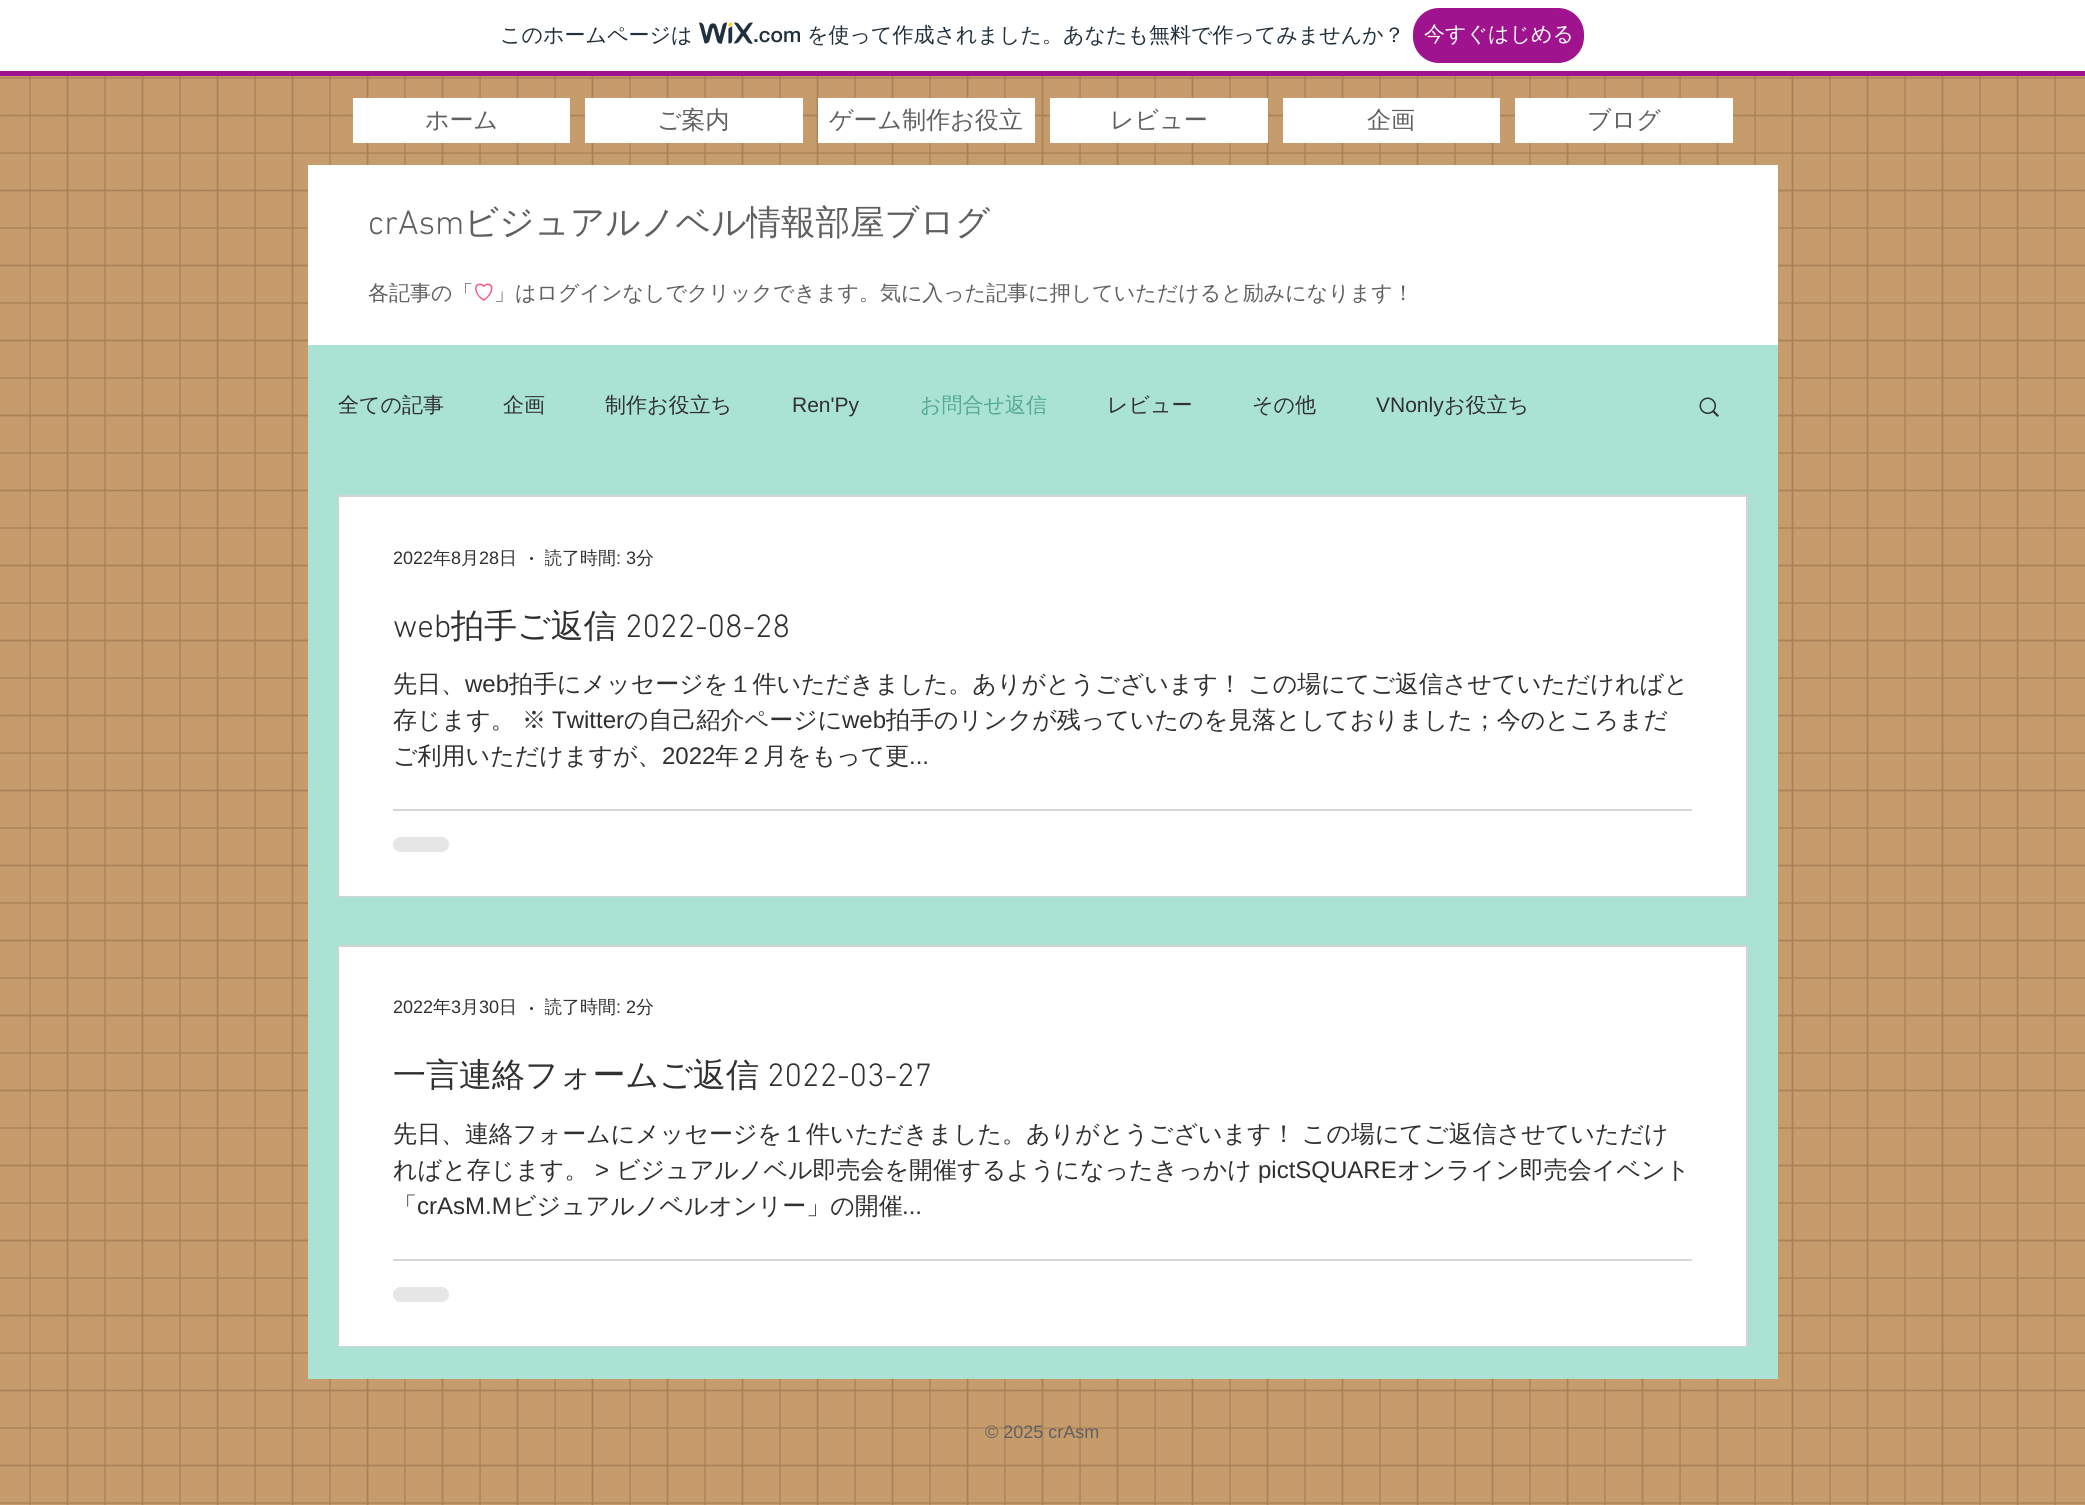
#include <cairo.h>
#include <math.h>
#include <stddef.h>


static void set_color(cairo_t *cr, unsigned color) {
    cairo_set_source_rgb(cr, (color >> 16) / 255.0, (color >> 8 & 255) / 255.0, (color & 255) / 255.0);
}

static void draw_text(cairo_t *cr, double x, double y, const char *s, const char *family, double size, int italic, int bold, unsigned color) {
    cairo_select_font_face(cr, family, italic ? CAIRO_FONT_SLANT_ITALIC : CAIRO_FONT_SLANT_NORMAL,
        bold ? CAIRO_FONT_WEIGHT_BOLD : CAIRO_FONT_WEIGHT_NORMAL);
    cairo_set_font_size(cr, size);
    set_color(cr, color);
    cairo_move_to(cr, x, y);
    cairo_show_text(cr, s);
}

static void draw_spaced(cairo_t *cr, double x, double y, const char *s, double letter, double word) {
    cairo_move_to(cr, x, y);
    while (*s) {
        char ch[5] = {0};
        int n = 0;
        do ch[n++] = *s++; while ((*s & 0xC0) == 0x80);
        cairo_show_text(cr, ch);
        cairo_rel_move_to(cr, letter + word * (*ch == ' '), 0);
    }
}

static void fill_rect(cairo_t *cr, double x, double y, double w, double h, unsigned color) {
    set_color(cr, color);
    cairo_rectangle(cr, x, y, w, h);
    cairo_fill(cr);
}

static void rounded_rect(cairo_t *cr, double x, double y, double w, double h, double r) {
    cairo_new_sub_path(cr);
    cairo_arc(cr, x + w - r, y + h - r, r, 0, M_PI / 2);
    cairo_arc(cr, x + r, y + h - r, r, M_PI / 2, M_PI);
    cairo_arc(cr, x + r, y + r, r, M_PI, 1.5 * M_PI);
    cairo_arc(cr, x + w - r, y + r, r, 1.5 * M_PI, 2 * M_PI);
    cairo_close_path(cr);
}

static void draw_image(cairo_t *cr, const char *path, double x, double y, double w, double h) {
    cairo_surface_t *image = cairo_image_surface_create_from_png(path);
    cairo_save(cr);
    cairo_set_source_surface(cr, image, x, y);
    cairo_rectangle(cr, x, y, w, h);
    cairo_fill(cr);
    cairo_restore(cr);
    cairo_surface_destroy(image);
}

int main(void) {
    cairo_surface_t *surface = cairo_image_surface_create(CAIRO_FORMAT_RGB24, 2085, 1505);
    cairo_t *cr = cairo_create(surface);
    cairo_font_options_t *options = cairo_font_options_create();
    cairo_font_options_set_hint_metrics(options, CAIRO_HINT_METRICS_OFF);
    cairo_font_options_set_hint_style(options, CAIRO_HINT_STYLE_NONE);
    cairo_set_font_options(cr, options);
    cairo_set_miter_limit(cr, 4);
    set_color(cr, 0xFFFFFF);
    cairo_paint(cr);
    fill_rect(cr, 0, 71, 2085, 5, 0xA0138E);
    draw_text(cr, 500, 42, "このホームページは", "WenQuanYi Zen Hei Medium", 21, 0, 0, 0x20303C);
    draw_image(cr, "assets/img1.png", 699, 22, 54, 22);
    draw_text(cr, 753, 42, ".com", "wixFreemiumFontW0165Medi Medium", 21, 0, 0, 0x20303C);
    draw_text(cr, 807, 42, "を使って作成されました。あなたも無料で作ってみませんか？", "WenQuanYi Zen Hei Medium", 21, 0, 0, 0x20303C);
    set_color(cr, 0xA0138E);
    rounded_rect(cr, 1414, 9, 169, 53, 25);
    cairo_fill_preserve(cr);
    cairo_stroke(cr);
    draw_text(cr, 1424, 41, "今すぐはじめる", "WenQuanYi Zen Hei Medium", 21, 0, 0, 0xFFFFFF);
    draw_image(cr, "assets/img2.png", 0, 76, 2085, 1429);
    fill_rect(cr, 353, 98, 217, 45, 0xFFFFFF);
    draw_text(cr, 425, 128, "ホーム", "WenQuanYi Zen Hei Medium", 24, 0, 0, 0x606060);
    fill_rect(cr, 585, 98, 218, 45, 0xFFFFFF);
    draw_text(cr, 657, 128, "ご案内", "WenQuanYi Zen Hei Medium", 24, 0, 0, 0x606060);
    fill_rect(cr, 818, 98, 217, 45, 0xFFFFFF);
    draw_text(cr, 829, 128, "ゲーム制作お役立", "WenQuanYi Zen Hei Medium", 24, 0, 0, 0x606060);
    fill_rect(cr, 1050, 98, 218, 45, 0xFFFFFF);
    draw_text(cr, 1110, 128, "レビュー", "WenQuanYi Zen Hei Medium", 24, 0, 0, 0x606060);
    fill_rect(cr, 1283, 98, 217, 45, 0xFFFFFF);
    draw_text(cr, 1367, 128, "企画", "WenQuanYi Zen Hei Medium", 24, 0, 0, 0x606060);
    fill_rect(cr, 1515, 98, 218, 45, 0xFFFFFF);
    draw_text(cr, 1587, 128, "ブログ", "WenQuanYi Zen Hei Medium", 24, 0, 0, 0x606060);
    fill_rect(cr, 308, 165, 1470, 180, 0xFFFFFF);
    draw_text(cr, 368, 234, "crAsm", "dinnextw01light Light", 34.5, 0, 0, 0x606060);
    draw_text(cr, 464, 234, "ビジュアルノベル情報部屋ブログ", "WenQuanYi Zen Hei Medium", 34.5, 0, 0, 0x606060);
    draw_text(cr, 368, 300, "各記事の「", "WenQuanYi Zen Hei Medium", 21, 0, 0, 0x606060);
    draw_text(cr, 473, 300, "♡", "WenQuanYi Zen Hei", 21, 0, 1, 0xF75981);
    draw_text(cr, 494, 300, "」はログインなしでクリックできます。気に入った記事に押していただけると励みになります！", "WenQuanYi Zen Hei Medium", 21, 0, 0, 0x606060);
    fill_rect(cr, 308, 345, 1470, 1034, 0xAAE3D4);
    draw_text(cr, 338, 412, "全ての記事", "WenQuanYi Zen Hei Medium", 21, 0, 0, 0x303030);
    draw_text(cr, 503, 412, "企画", "WenQuanYi Zen Hei Medium", 21, 0, 0, 0x303030);
    draw_text(cr, 605, 412, "制作お役立ち", "WenQuanYi Zen Hei Medium", 21, 0, 0, 0x303030);
    draw_text(cr, 792, 412, "Ren'Py", "Liberation Sans", 21, 0, 0, 0x303030);
    draw_text(cr, 920, 412, "お問合せ返信", "WenQuanYi Zen Hei Medium", 21, 0, 0, 0x55AA94);
    draw_text(cr, 1107, 412, "レビュー", "WenQuanYi Zen Hei Medium", 21, 0, 0, 0x303030);
    draw_text(cr, 1252, 412, "その他", "WenQuanYi Zen Hei Medium", 21, 0, 0, 0x303030);
    draw_text(cr, 1376, 412, "VNonly", "Liberation Sans", 21, 0, 0, 0x303030);
    draw_text(cr, 1444, 412, "お役立ち", "WenQuanYi Zen Hei Medium", 21, 0, 0, 0x303030);
    draw_image(cr, "assets/img3.png", 1699, 397, 20, 20);
    cairo_rectangle(cr, 339, 496, 1408, 400);
    set_color(cr, 0xD4D4D4);
    cairo_stroke(cr);
    fill_rect(cr, 339, 497, 1407, 399, 0xFFFFFF);
    draw_text(cr, 393, 564, "2022", "Liberation Sans", 18, 0, 0, 0x303030);
    draw_text(cr, 433, 564, "年", "WenQuanYi Zen Hei Medium", 18, 0, 0, 0x303030);
    draw_text(cr, 451, 564, "8", "Liberation Sans", 18, 0, 0, 0x303030);
    draw_text(cr, 461, 564, "月", "WenQuanYi Zen Hei Medium", 18, 0, 0, 0x303030);
    draw_text(cr, 479, 564, "28", "Liberation Sans", 18, 0, 0, 0x303030);
    draw_text(cr, 499, 564, "日", "WenQuanYi Zen Hei Medium", 18, 0, 0, 0x303030);
    cairo_new_path(cr);
    cairo_arc(cr, 531.5, 558.5, 1.5, 0, 2 * M_PI);
    cairo_fill(cr);
    cairo_save(cr);
    cairo_rectangle(cr, 545, 546, 109, 26);
    cairo_clip(cr);
    draw_text(cr, 544, 564, "読了時間", "WenQuanYi Zen Hei Medium", 18, 0, 0, 0x303030);
    cairo_restore(cr);
    draw_text(cr, 616, 564, ": 3", "Liberation Sans", 18, 0, 0, 0x303030);
    draw_text(cr, 636, 564, "分", "WenQuanYi Zen Hei Medium", 18, 0, 0, 0x303030);
    draw_text(cr, 393, 637, "web", "dinnextw01light Light", 33, 0, 0, 0x303030);
    draw_text(cr, 451, 637, "拍手ご返信", "WenQuanYi Zen Hei Medium", 33, 0, 0, 0x303030);
    draw_text(cr, 625, 637, "2022-08-28", "dinnextw01light Light", 33, 0, 0, 0x303030);
    draw_text(cr, 393, 692, "先日、", "WenQuanYi Zen Hei Medium", 24, 0, 0, 0x303030);
    draw_text(cr, 465, 692, "web", "Liberation Sans", 24, 0, 0, 0x303030);
    cairo_select_font_face(cr, "WenQuanYi Zen Hei Medium", CAIRO_FONT_SLANT_NORMAL, CAIRO_FONT_WEIGHT_NORMAL);
    draw_spaced(cr, 509, 692, "拍手にメッセージを１件いただきました。ありがとうございます！ この場にてご返信させていただければと", 0, -1);
    draw_text(cr, 393, 728, "存じます。 ※", "WenQuanYi Zen Hei Medium", 24, 0, 0, 0x303030);
    draw_text(cr, 552, 728, "Twitter", "Liberation Sans", 24, 0, 0, 0x303030);
    draw_text(cr, 624, 728, "の自己紹介ページに", "WenQuanYi Zen Hei Medium", 24, 0, 0, 0x303030);
    draw_text(cr, 842, 728, "web", "Liberation Sans", 24, 0, 0, 0x303030);
    draw_text(cr, 886, 728, "拍手のリンクが残っていたのを見落としておりました；今のところまだ", "WenQuanYi Zen Hei Medium", 24, 0, 0, 0x303030);
    draw_text(cr, 393, 764, "ご利用いただけますが、", "WenQuanYi Zen Hei Medium", 24, 0, 0, 0x303030);
    draw_text(cr, 662, 764, "2022", "Liberation Sans", 24, 0, 0, 0x303030);
    draw_text(cr, 715, 764, "年２月をもって更", "WenQuanYi Zen Hei Medium", 24, 0, 0, 0x303030);
    draw_text(cr, 909, 764, "...", "Liberation Sans", 24, 0, 0, 0x303030);
    fill_rect(cr, 393, 809, 1299, 2, 0xD6D6D6);
    set_color(cr, 0xE6E6E6);
    rounded_rect(cr, 393, 837, 56, 15, 7.5);
    cairo_fill(cr);
    cairo_rectangle(cr, 339, 946, 1408, 400);
    set_color(cr, 0xD4D4D4);
    cairo_stroke(cr);
    fill_rect(cr, 339, 947, 1407, 399, 0xFFFFFF);
    draw_text(cr, 393, 1013, "2022", "Liberation Sans", 18, 0, 0, 0x303030);
    draw_text(cr, 433, 1013, "年", "WenQuanYi Zen Hei Medium", 18, 0, 0, 0x303030);
    draw_text(cr, 451, 1013, "3", "Liberation Sans", 18, 0, 0, 0x303030);
    draw_text(cr, 461, 1013, "月", "WenQuanYi Zen Hei Medium", 18, 0, 0, 0x303030);
    draw_text(cr, 479, 1013, "30", "Liberation Sans", 18, 0, 0, 0x303030);
    draw_text(cr, 499, 1013, "日", "WenQuanYi Zen Hei Medium", 18, 0, 0, 0x303030);
    cairo_new_path(cr);
    cairo_arc(cr, 531.5, 1008.5, 1.5, 0, 2 * M_PI);
    cairo_fill(cr);
    cairo_save(cr);
    cairo_rectangle(cr, 545, 996, 109, 26);
    cairo_clip(cr);
    draw_text(cr, 544, 1013, "読了時間", "WenQuanYi Zen Hei Medium", 18, 0, 0, 0x303030);
    cairo_restore(cr);
    draw_text(cr, 616, 1013, ": 2", "Liberation Sans", 18, 0, 0, 0x303030);
    draw_text(cr, 636, 1013, "分", "WenQuanYi Zen Hei Medium", 18, 0, 0, 0x303030);
    draw_text(cr, 393, 1086, "一言連絡フォームご返信", "WenQuanYi Zen Hei Medium", 33, 0, 0, 0x303030);
    draw_text(cr, 767, 1086, "2022-03-27", "dinnextw01light Light", 33, 0, 0, 0x303030);
    cairo_select_font_face(cr, "WenQuanYi Zen Hei Medium", CAIRO_FONT_SLANT_NORMAL, CAIRO_FONT_WEIGHT_NORMAL);
    cairo_set_font_size(cr, 24);
    draw_spaced(cr, 393, 1142, "先日、連絡フォームにメッセージを１件いただきました。ありがとうございます！ この場にてご返信させていただけ", 0, -1);
    draw_text(cr, 393, 1178, "ればと存じます。", "WenQuanYi Zen Hei Medium", 24, 0, 0, 0x303030);
    draw_text(cr, 595, 1178, ">", "Liberation Sans", 24, 0, 0, 0x303030);
    draw_text(cr, 616, 1178, "ビジュアルノベル即売会を開催するようになったきっかけ", "WenQuanYi Zen Hei Medium", 24, 0, 0, 0x303030);
    draw_text(cr, 1258, 1178, "pictSQUARE", "Liberation Sans", 24, 0, 0, 0x303030);
    draw_text(cr, 1397, 1178, "オンライン即売会イベント", "WenQuanYi Zen Hei Medium", 24, 0, 0, 0x303030);
    draw_text(cr, 393, 1214, "「", "WenQuanYi Zen Hei Medium", 24, 0, 0, 0x303030);
    draw_text(cr, 417, 1214, "crAsM.M", "Liberation Sans", 24, 0, 0, 0x303030);
    draw_text(cr, 512, 1214, "ビジュアルノベルオンリー」の開催", "WenQuanYi Zen Hei Medium", 24, 0, 0, 0x303030);
    draw_text(cr, 902, 1214, "...", "Liberation Sans", 24, 0, 0, 0x303030);
    fill_rect(cr, 393, 1259, 1299, 2, 0xD6D6D6);
    set_color(cr, 0xE6E6E6);
    rounded_rect(cr, 393, 1287, 56, 15, 7.5);
    cairo_fill(cr);
    draw_text(cr, 985, 1438, "© 2025 crAsm", "Liberation Sans", 18, 0, 0, 0x606060);
    cairo_surface_write_to_png(surface, "output.png");
    cairo_font_options_destroy(options);
    cairo_destroy(cr);
    cairo_surface_destroy(surface);
    return 0;
}
